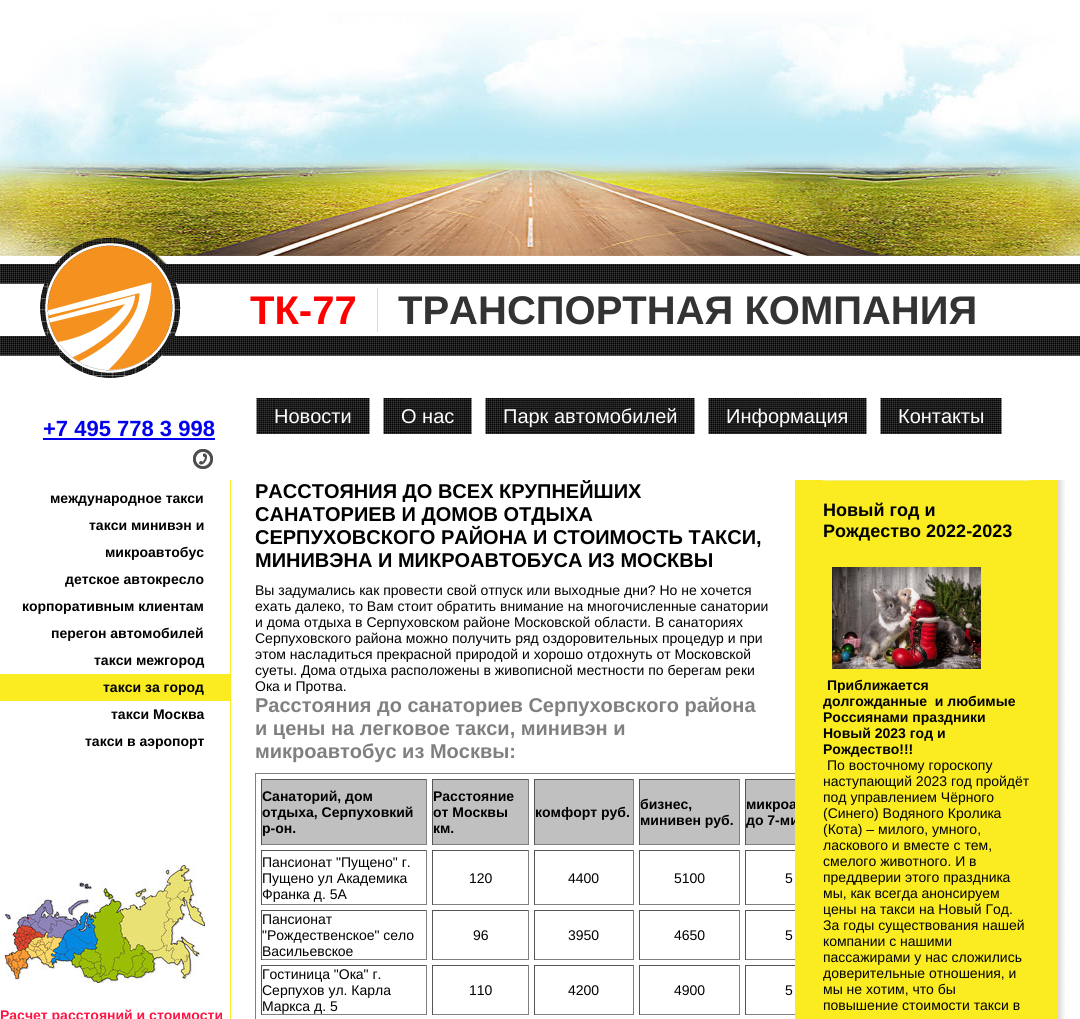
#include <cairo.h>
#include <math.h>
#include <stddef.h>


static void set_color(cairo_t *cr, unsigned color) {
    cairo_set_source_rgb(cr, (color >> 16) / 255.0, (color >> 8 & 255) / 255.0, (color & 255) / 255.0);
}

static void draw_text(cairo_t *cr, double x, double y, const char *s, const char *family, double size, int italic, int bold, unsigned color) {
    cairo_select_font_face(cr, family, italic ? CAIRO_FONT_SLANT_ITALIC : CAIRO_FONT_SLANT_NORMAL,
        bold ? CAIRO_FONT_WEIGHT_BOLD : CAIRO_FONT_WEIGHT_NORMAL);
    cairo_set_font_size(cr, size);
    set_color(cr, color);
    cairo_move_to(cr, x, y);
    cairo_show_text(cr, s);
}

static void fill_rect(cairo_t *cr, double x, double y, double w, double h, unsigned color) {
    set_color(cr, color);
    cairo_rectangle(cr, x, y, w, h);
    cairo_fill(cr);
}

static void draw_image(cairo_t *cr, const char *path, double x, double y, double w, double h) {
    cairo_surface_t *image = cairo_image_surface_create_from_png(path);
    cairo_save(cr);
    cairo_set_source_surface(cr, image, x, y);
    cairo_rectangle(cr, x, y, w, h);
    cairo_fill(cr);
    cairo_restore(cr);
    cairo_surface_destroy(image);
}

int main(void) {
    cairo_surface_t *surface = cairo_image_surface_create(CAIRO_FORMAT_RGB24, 1080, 1019);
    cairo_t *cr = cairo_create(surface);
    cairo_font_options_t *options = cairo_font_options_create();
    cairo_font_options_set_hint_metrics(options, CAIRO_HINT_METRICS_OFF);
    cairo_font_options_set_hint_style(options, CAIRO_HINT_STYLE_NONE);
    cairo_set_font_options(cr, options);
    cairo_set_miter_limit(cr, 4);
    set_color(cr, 0xFFFFFF);
    cairo_paint(cr);
    draw_image(cr, "assets/img2.png", 0, 12, 1080, 244);
    draw_image(cr, "assets/img3.png", 0, 264, 1080, 92);
    draw_image(cr, "assets/img1.png", 40, 237, 141, 141);
    draw_text(cr, 250, 324, "ТК-77", "Liberation Sans", 40, 0, 1, 0xFF0000);
    fill_rect(cr, 377, 288, 1, 44, 0xFAEC21);
    draw_text(cr, 398, 324, "ТРАНСПОРТНАЯ КОМПАНИЯ", "Liberation Sans", 40, 0, 1, 0x333333);
    draw_image(cr, "assets/img4.png", 193, 449, 20, 20);
    draw_text(cr, 43, 436, "+7 495 778 3 998", "Liberation Sans", 22, 0, 1, 0x0000EE);
    fill_rect(cr, 43, 438, 172, 2, 0x0000EE);
    draw_image(cr, "assets/img5.png", 256, 398, 18, 36);
    draw_image(cr, "assets/img6.png", 274, 398, 96, 36);
    draw_text(cr, 274, 423, "Новости", "Liberation Sans", 20, 0, 0, 0xFFFFFF);
    draw_image(cr, "assets/img7.png", 383, 398, 18, 36);
    draw_image(cr, "assets/img8.png", 401, 398, 71, 36);
    draw_text(cr, 401, 423, "О нас", "Liberation Sans", 20, 0, 0, 0xFFFFFF);
    draw_image(cr, "assets/img7.png", 485, 398, 18, 36);
    draw_image(cr, "assets/img9.png", 503, 398, 192, 36);
    draw_text(cr, 503, 423, "Парк автомобилей", "Liberation Sans", 20, 0, 0, 0xFFFFFF);
    draw_image(cr, "assets/img5.png", 708, 398, 18, 36);
    draw_image(cr, "assets/img10.png", 726, 398, 141, 36);
    draw_text(cr, 726, 423, "Информация", "Liberation Sans", 20, 0, 0, 0xFFFFFF);
    draw_image(cr, "assets/img7.png", 880, 398, 18, 36);
    draw_image(cr, "assets/img11.png", 898, 398, 104, 36);
    draw_text(cr, 898, 423, "Контакты", "Liberation Sans", 20, 0, 0, 0xFFFFFF);
    fill_rect(cr, 230, 480, 1, 539, 0xFAEC21);
    draw_text(cr, 50, 503, "международное такси", "Liberation Sans", 14, 0, 1, 0x000000);
    draw_text(cr, 89, 530, "такси минивэн и", "Liberation Sans", 14, 0, 1, 0x000000);
    draw_text(cr, 105, 557, "микроавтобус", "Liberation Sans", 14, 0, 1, 0x000000);
    draw_text(cr, 65, 584, "детское автокресло", "Liberation Sans", 14, 0, 1, 0x000000);
    draw_text(cr, 22, 611, "корпоративным клиентам", "Liberation Sans", 14, 0, 1, 0x000000);
    draw_text(cr, 51, 638, "перегон автомобилей", "Liberation Sans", 14, 0, 1, 0x000000);
    draw_text(cr, 94, 665, "такси межгород", "Liberation Sans", 14, 0, 1, 0x000000);
    fill_rect(cr, 0, 674, 230, 27, 0xFAEC21);
    draw_text(cr, 103, 692, "такси за город", "Liberation Sans", 14, 0, 1, 0x000000);
    draw_text(cr, 111, 719, "такси Москва", "Liberation Sans", 14, 0, 1, 0x000000);
    draw_text(cr, 85, 746, "такси в аэропорт", "Liberation Sans", 14, 0, 1, 0x000000);
    draw_image(cr, "assets/img12.png", 5, 865, 200, 118);
    draw_text(cr, 0, 1020, "Расчет расстояний и стоимости", "Liberation Sans", 14, 0, 1, 0xFF1443);
    cairo_save(cr);
    cairo_rectangle(cr, 0, 480, 1080, 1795);
    cairo_clip(cr);
    draw_text(cr, 255, 498, "РАССТОЯНИЯ ДО ВСЕХ КРУПНЕЙШИХ", "Liberation Sans", 20, 0, 1, 0x000000);
    cairo_restore(cr);
    draw_text(cr, 255, 521, "САНАТОРИЕВ И ДОМОВ ОТДЫХА", "Liberation Sans", 20, 0, 1, 0x000000);
    draw_text(cr, 255, 544, "СЕРПУХОВСКОГО РАЙОНА И СТОИМОСТЬ ТАКСИ,", "Liberation Sans", 20, 0, 1, 0x000000);
    draw_text(cr, 255, 567, "МИНИВЭНА И МИКРОАВТОБУСА ИЗ МОСКВЫ", "Liberation Sans", 20, 0, 1, 0x000000);
    draw_text(cr, 255, 595, "Вы задумались как провести свой отпуск или выходные дни? Но не хочется", "Liberation Sans", 14, 0, 0, 0x000000);
    draw_text(cr, 255, 611, "ехать далеко, то Вам стоит обратить внимание на многочисленные санатории", "Liberation Sans", 14, 0, 0, 0x000000);
    draw_text(cr, 255, 627, "и дома отдыха в Серпуховском районе Московской области. В санаториях", "Liberation Sans", 14, 0, 0, 0x000000);
    draw_text(cr, 255, 643, "Серпуховского района можно получить ряд оздоровительных процедур и при", "Liberation Sans", 14, 0, 0, 0x000000);
    draw_text(cr, 255, 659, "этом насладиться прекрасной природой и хорошо отдохнуть от Московской", "Liberation Sans", 14, 0, 0, 0x000000);
    draw_text(cr, 255, 675, "суеты. Дома отдыха расположены в живописной местности по берегам реки", "Liberation Sans", 14, 0, 0, 0x000000);
    draw_text(cr, 255, 691, "Ока и Протва.", "Liberation Sans", 14, 0, 0, 0x000000);
    draw_text(cr, 255, 712, "Расстояния до санаториев Серпуховского района", "Liberation Sans", 20, 0, 1, 0x808080);
    draw_text(cr, 255, 735, "и цены на легковое такси, минивэн и", "Liberation Sans", 20, 0, 1, 0x808080);
    draw_text(cr, 255, 758, "микроавтобус из Москвы:", "Liberation Sans", 20, 0, 1, 0x808080);
    fill_rect(cr, 255, 773, 540, 1, 0x808080);
    fill_rect(cr, 255, 773, 1, 246, 0x808080);
    fill_rect(cr, 262, 780, 164, 64, 0xC0C0C0);
    fill_rect(cr, 261, 779, 166, 1, 0x555555);
    fill_rect(cr, 426, 779, 1, 66, 0x808080);
    fill_rect(cr, 261, 844, 166, 1, 0x808080);
    fill_rect(cr, 261, 779, 1, 66, 0x555555);
    draw_text(cr, 262, 801, "Санаторий, дом", "Liberation Sans", 14, 0, 1, 0x000000);
    draw_text(cr, 262, 817, "отдыха, Серпуховкий", "Liberation Sans", 14, 0, 1, 0x000000);
    draw_text(cr, 262, 833, "р-он.", "Liberation Sans", 14, 0, 1, 0x000000);
    fill_rect(cr, 433, 780, 95, 64, 0xC0C0C0);
    fill_rect(cr, 432, 779, 97, 1, 0x555555);
    fill_rect(cr, 528, 779, 1, 66, 0x808080);
    fill_rect(cr, 432, 844, 97, 1, 0x808080);
    fill_rect(cr, 432, 779, 1, 66, 0x555555);
    draw_text(cr, 433, 801, "Расстояние", "Liberation Sans", 14, 0, 1, 0x000000);
    draw_text(cr, 433, 817, "от Москвы", "Liberation Sans", 14, 0, 1, 0x000000);
    draw_text(cr, 433, 833, "км.", "Liberation Sans", 14, 0, 1, 0x000000);
    fill_rect(cr, 535, 780, 98, 64, 0xC0C0C0);
    fill_rect(cr, 534, 779, 100, 1, 0x555555);
    fill_rect(cr, 633, 779, 1, 66, 0x808080);
    fill_rect(cr, 534, 844, 100, 1, 0x808080);
    fill_rect(cr, 534, 779, 1, 66, 0x555555);
    draw_text(cr, 535, 817, "комфорт руб.", "Liberation Sans", 14, 0, 1, 0x000000);
    fill_rect(cr, 640, 780, 99, 64, 0xC0C0C0);
    fill_rect(cr, 639, 779, 101, 1, 0x555555);
    fill_rect(cr, 739, 779, 1, 66, 0x808080);
    fill_rect(cr, 639, 844, 101, 1, 0x808080);
    fill_rect(cr, 639, 779, 1, 66, 0x555555);
    draw_text(cr, 640, 809, "бизнес,", "Liberation Sans", 14, 0, 1, 0x000000);
    draw_text(cr, 640, 825, "минивен руб.", "Liberation Sans", 14, 0, 1, 0x000000);
    fill_rect(cr, 746, 780, 49, 64, 0xC0C0C0);
    fill_rect(cr, 745, 779, 50, 1, 0x555555);
    fill_rect(cr, 745, 844, 50, 1, 0x808080);
    fill_rect(cr, 745, 779, 1, 66, 0x555555);
    draw_text(cr, 746, 809, "микроа", "Liberation Sans", 14, 0, 1, 0x000000);
    draw_text(cr, 746, 825, "до 7-ми", "Liberation Sans", 14, 0, 1, 0x000000);
    fill_rect(cr, 261, 850, 166, 1, 0x555555);
    fill_rect(cr, 426, 850, 1, 55, 0x808080);
    fill_rect(cr, 261, 904, 166, 1, 0x808080);
    fill_rect(cr, 261, 850, 1, 55, 0x555555);
    draw_text(cr, 262, 867, "Пансионат \"Пущено\" г.", "Liberation Sans", 14, 0, 0, 0x000000);
    draw_text(cr, 262, 883, "Пущено ул Академика", "Liberation Sans", 14, 0, 0, 0x000000);
    draw_text(cr, 262, 899, "Франка д. 5А", "Liberation Sans", 14, 0, 0, 0x000000);
    fill_rect(cr, 432, 850, 97, 1, 0x555555);
    fill_rect(cr, 528, 850, 1, 55, 0x808080);
    fill_rect(cr, 432, 904, 97, 1, 0x808080);
    fill_rect(cr, 432, 850, 1, 55, 0x555555);
    draw_text(cr, 469, 883, "120", "Liberation Sans", 14, 0, 0, 0x000000);
    fill_rect(cr, 534, 850, 100, 1, 0x555555);
    fill_rect(cr, 633, 850, 1, 55, 0x808080);
    fill_rect(cr, 534, 904, 100, 1, 0x808080);
    fill_rect(cr, 534, 850, 1, 55, 0x555555);
    draw_text(cr, 568, 883, "4400", "Liberation Sans", 14, 0, 0, 0x000000);
    fill_rect(cr, 639, 850, 101, 1, 0x555555);
    fill_rect(cr, 739, 850, 1, 55, 0x808080);
    fill_rect(cr, 639, 904, 101, 1, 0x808080);
    fill_rect(cr, 639, 850, 1, 55, 0x555555);
    draw_text(cr, 674, 883, "5100", "Liberation Sans", 14, 0, 0, 0x000000);
    fill_rect(cr, 745, 850, 50, 1, 0x555555);
    fill_rect(cr, 745, 904, 50, 1, 0x808080);
    fill_rect(cr, 745, 850, 1, 55, 0x555555);
    draw_text(cr, 785, 883, "5", "Liberation Sans", 14, 0, 0, 0x000000);
    fill_rect(cr, 261, 910, 166, 1, 0x555555);
    fill_rect(cr, 426, 910, 1, 50, 0x808080);
    fill_rect(cr, 261, 959, 166, 1, 0x808080);
    fill_rect(cr, 261, 910, 1, 50, 0x555555);
    draw_text(cr, 262, 924, "Пансионат", "Liberation Sans", 14, 0, 0, 0x000000);
    draw_text(cr, 262, 940, "\"Рождественское\" село", "Liberation Sans", 14, 0, 0, 0x000000);
    draw_text(cr, 262, 956, "Васильевское", "Liberation Sans", 14, 0, 0, 0x000000);
    fill_rect(cr, 432, 910, 97, 1, 0x555555);
    fill_rect(cr, 528, 910, 1, 50, 0x808080);
    fill_rect(cr, 432, 959, 97, 1, 0x808080);
    fill_rect(cr, 432, 910, 1, 50, 0x555555);
    draw_text(cr, 473, 940, "96", "Liberation Sans", 14, 0, 0, 0x000000);
    fill_rect(cr, 534, 910, 100, 1, 0x555555);
    fill_rect(cr, 633, 910, 1, 50, 0x808080);
    fill_rect(cr, 534, 959, 100, 1, 0x808080);
    fill_rect(cr, 534, 910, 1, 50, 0x555555);
    draw_text(cr, 568, 940, "3950", "Liberation Sans", 14, 0, 0, 0x000000);
    fill_rect(cr, 639, 910, 101, 1, 0x555555);
    fill_rect(cr, 739, 910, 1, 50, 0x808080);
    fill_rect(cr, 639, 959, 101, 1, 0x808080);
    fill_rect(cr, 639, 910, 1, 50, 0x555555);
    draw_text(cr, 674, 940, "4650", "Liberation Sans", 14, 0, 0, 0x000000);
    fill_rect(cr, 745, 910, 50, 1, 0x555555);
    fill_rect(cr, 745, 959, 50, 1, 0x808080);
    fill_rect(cr, 745, 910, 1, 50, 0x555555);
    draw_text(cr, 785, 940, "5", "Liberation Sans", 14, 0, 0, 0x000000);
    fill_rect(cr, 261, 965, 166, 1, 0x555555);
    fill_rect(cr, 426, 965, 1, 50, 0x808080);
    fill_rect(cr, 261, 1014, 166, 1, 0x808080);
    fill_rect(cr, 261, 965, 1, 50, 0x555555);
    draw_text(cr, 262, 979, "Гостиница \"Ока\" г.", "Liberation Sans", 14, 0, 0, 0x000000);
    draw_text(cr, 262, 995, "Серпухов ул. Карла", "Liberation Sans", 14, 0, 0, 0x000000);
    draw_text(cr, 262, 1011, "Маркса д. 5", "Liberation Sans", 14, 0, 0, 0x000000);
    fill_rect(cr, 432, 965, 97, 1, 0x555555);
    fill_rect(cr, 528, 965, 1, 50, 0x808080);
    fill_rect(cr, 432, 1014, 97, 1, 0x808080);
    fill_rect(cr, 432, 965, 1, 50, 0x555555);
    draw_text(cr, 469, 995, "110", "Liberation Sans", 14, 0, 0, 0x000000);
    fill_rect(cr, 534, 965, 100, 1, 0x555555);
    fill_rect(cr, 633, 965, 1, 50, 0x808080);
    fill_rect(cr, 534, 1014, 100, 1, 0x808080);
    fill_rect(cr, 534, 965, 1, 50, 0x555555);
    draw_text(cr, 568, 995, "4200", "Liberation Sans", 14, 0, 0, 0x000000);
    fill_rect(cr, 639, 965, 101, 1, 0x555555);
    fill_rect(cr, 739, 965, 1, 50, 0x808080);
    fill_rect(cr, 639, 1014, 101, 1, 0x808080);
    fill_rect(cr, 639, 965, 1, 50, 0x555555);
    draw_text(cr, 674, 995, "4900", "Liberation Sans", 14, 0, 0, 0x000000);
    fill_rect(cr, 745, 965, 50, 1, 0x555555);
    fill_rect(cr, 745, 1014, 50, 1, 0x808080);
    fill_rect(cr, 745, 965, 1, 50, 0x555555);
    draw_text(cr, 785, 995, "5", "Liberation Sans", 14, 0, 0, 0x000000);
    fill_rect(cr, 795, 480, 261, 539, 0xFAEC21);
    draw_image(cr, "assets/img13.png", 1056, 480, 9, 539);
    draw_image(cr, "assets/img14.png", 823, 480, 207, 6);
    draw_text(cr, 823, 516, "Новый год и", "Liberation Sans", 18, 0, 1, 0x000000);
    draw_text(cr, 823, 537, "Рождество 2022-2023", "Liberation Sans", 18, 0, 1, 0x000000);
    draw_image(cr, "assets/img15.png", 832, 567, 149, 102);
    draw_text(cr, 827, 690, "Приближается", "Liberation Sans", 14, 0, 1, 0x000000);
    draw_text(cr, 823, 706, "долгожданные  и любимые", "Liberation Sans", 14, 0, 1, 0x000000);
    draw_text(cr, 823, 722, "Россиянами праздники", "Liberation Sans", 14, 0, 1, 0x000000);
    draw_text(cr, 823, 738, "Новый 2023 год и", "Liberation Sans", 14, 0, 1, 0x000000);
    draw_text(cr, 823, 754, "Рождество!!!", "Liberation Sans", 14, 0, 1, 0x000000);
    draw_text(cr, 827, 770, "По восточному гороскопу", "Liberation Sans", 14, 0, 0, 0x000000);
    draw_text(cr, 823, 786, "наступающий 2023 год пройдёт", "Liberation Sans", 14, 0, 0, 0x000000);
    draw_text(cr, 823, 802, "под управлением Чёрного", "Liberation Sans", 14, 0, 0, 0x000000);
    draw_text(cr, 823, 818, "(Синего) Водяного Кролика", "Liberation Sans", 14, 0, 0, 0x000000);
    draw_text(cr, 823, 834, "(Кота) – милого, умного,", "Liberation Sans", 14, 0, 0, 0x000000);
    draw_text(cr, 823, 850, "ласкового и вместе с тем,", "Liberation Sans", 14, 0, 0, 0x000000);
    draw_text(cr, 823, 866, "смелого животного. И в", "Liberation Sans", 14, 0, 0, 0x000000);
    draw_text(cr, 823, 882, "преддверии этого праздника", "Liberation Sans", 14, 0, 0, 0x000000);
    draw_text(cr, 823, 898, "мы, как всегда анонсируем", "Liberation Sans", 14, 0, 0, 0x000000);
    draw_text(cr, 823, 914, "цены на такси на Новый Год.", "Liberation Sans", 14, 0, 0, 0x000000);
    draw_text(cr, 823, 930, "За годы существования нашей", "Liberation Sans", 14, 0, 0, 0x000000);
    draw_text(cr, 823, 946, "компании с нашими", "Liberation Sans", 14, 0, 0, 0x000000);
    draw_text(cr, 823, 962, "пассажирами у нас сложились", "Liberation Sans", 14, 0, 0, 0x000000);
    draw_text(cr, 823, 978, "доверительные отношения, и", "Liberation Sans", 14, 0, 0, 0x000000);
    draw_text(cr, 823, 994, "мы не хотим, что бы", "Liberation Sans", 14, 0, 0, 0x000000);
    draw_text(cr, 823, 1010, "повышение стоимости такси в", "Liberation Sans", 14, 0, 0, 0x000000);
    cairo_surface_write_to_png(surface, "output.png");
    cairo_font_options_destroy(options);
    cairo_destroy(cr);
    cairo_surface_destroy(surface);
    return 0;
}
